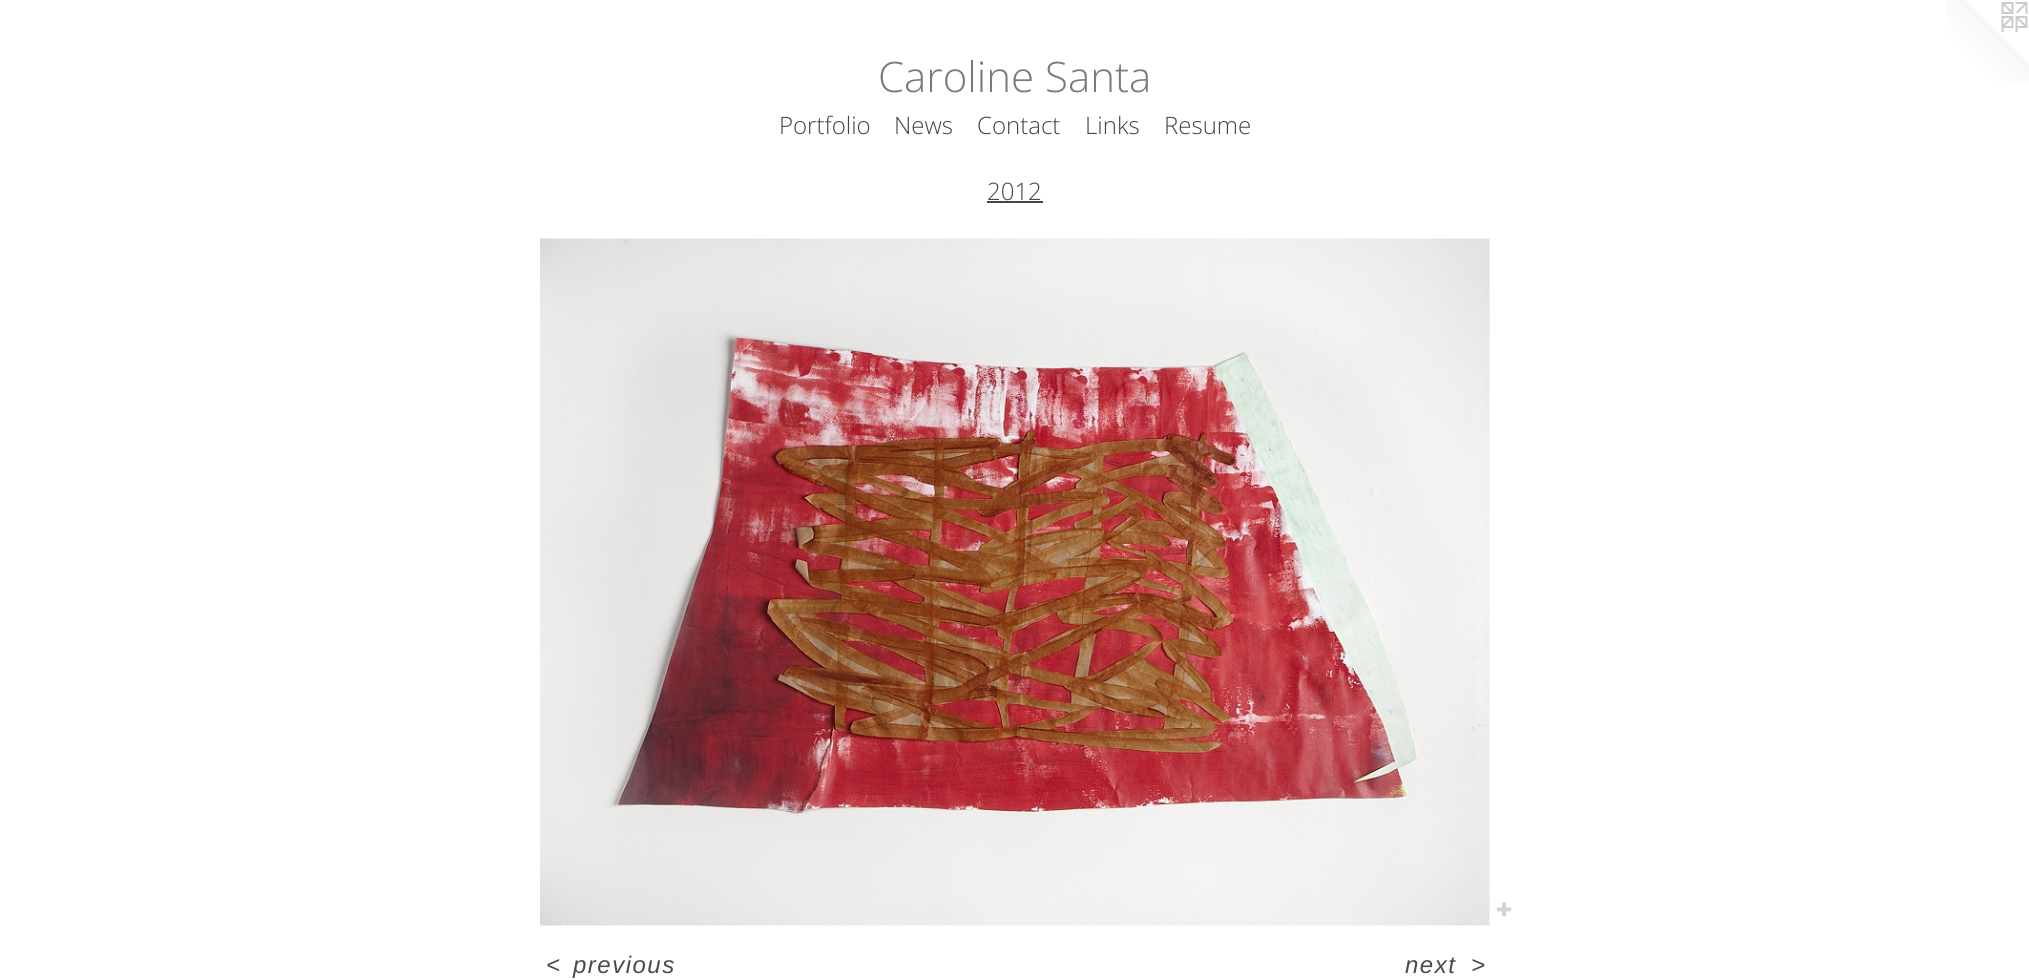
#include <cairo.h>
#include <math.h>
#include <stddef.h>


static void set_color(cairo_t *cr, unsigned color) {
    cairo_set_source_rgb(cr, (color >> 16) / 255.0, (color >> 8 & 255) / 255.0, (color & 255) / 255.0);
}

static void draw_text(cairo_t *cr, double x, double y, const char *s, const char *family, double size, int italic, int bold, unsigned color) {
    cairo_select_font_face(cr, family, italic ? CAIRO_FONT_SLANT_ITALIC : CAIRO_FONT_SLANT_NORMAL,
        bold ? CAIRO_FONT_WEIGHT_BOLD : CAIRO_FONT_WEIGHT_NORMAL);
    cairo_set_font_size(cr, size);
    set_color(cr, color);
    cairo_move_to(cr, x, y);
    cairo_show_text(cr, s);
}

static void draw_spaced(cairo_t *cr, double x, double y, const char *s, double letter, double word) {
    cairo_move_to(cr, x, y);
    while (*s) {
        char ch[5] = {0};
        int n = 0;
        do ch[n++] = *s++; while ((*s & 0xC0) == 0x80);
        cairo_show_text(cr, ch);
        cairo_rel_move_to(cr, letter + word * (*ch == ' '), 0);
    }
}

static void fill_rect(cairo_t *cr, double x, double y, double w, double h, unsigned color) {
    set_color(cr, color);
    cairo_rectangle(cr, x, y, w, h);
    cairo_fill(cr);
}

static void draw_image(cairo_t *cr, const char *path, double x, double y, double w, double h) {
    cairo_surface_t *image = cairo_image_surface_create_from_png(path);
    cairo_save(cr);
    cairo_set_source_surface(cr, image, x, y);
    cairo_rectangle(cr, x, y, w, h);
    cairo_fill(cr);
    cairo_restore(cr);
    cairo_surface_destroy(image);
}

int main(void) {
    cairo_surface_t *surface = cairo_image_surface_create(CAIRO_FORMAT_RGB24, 2029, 980);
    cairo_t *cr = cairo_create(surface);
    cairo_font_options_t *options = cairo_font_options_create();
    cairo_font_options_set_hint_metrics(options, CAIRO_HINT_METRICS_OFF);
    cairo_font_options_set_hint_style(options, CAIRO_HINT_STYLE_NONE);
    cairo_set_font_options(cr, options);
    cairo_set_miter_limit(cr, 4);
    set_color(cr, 0xFFFFFF);
    cairo_paint(cr);
    draw_text(cr, 878, 92, "Caroline Santa", "Open Sans Light", 42, 0, 0, 0x7A7A7A);
    draw_image(cr, "assets/img1.png", 1946, 0, 83, 83);
    draw_text(cr, 779, 134, "Portfolio", "Open Sans Light", 24, 0, 0, 0x454446);
    draw_text(cr, 894, 134, "News", "Open Sans Light", 24, 0, 0, 0x454446);
    draw_text(cr, 977, 134, "Contact", "Open Sans Light", 24, 0, 0, 0x454446);
    draw_text(cr, 1085, 134, "Links", "Open Sans Light", 24, 0, 0, 0x454446);
    draw_text(cr, 1164, 134, "Resume", "Open Sans Light", 24, 0, 0, 0x454446);
    draw_text(cr, 987, 200, "2012", "Open Sans Light", 24, 0, 0, 0x454446);
    fill_rect(cr, 987, 201, 56, 2, 0x454446);
    draw_image(cr, "assets/img2.png", 540, 238, 950, 688);
    draw_image(cr, "assets/img3.png", 1497, 902, 15, 15);
    cairo_select_font_face(cr, "Liberation Sans", CAIRO_FONT_SLANT_ITALIC, CAIRO_FONT_WEIGHT_NORMAL);
    set_color(cr, 0x4C4950);
    draw_spaced(cr, 546, 973, "<", 1.5, 0);
    draw_spaced(cr, 573, 973, "previous", 1.5, 0);
    draw_spaced(cr, 1405, 973, "next", 1.5, 0);
    draw_spaced(cr, 1471, 973, ">", 1.5, 0);
    cairo_surface_write_to_png(surface, "output.png");
    cairo_font_options_destroy(options);
    cairo_destroy(cr);
    cairo_surface_destroy(surface);
    return 0;
}
